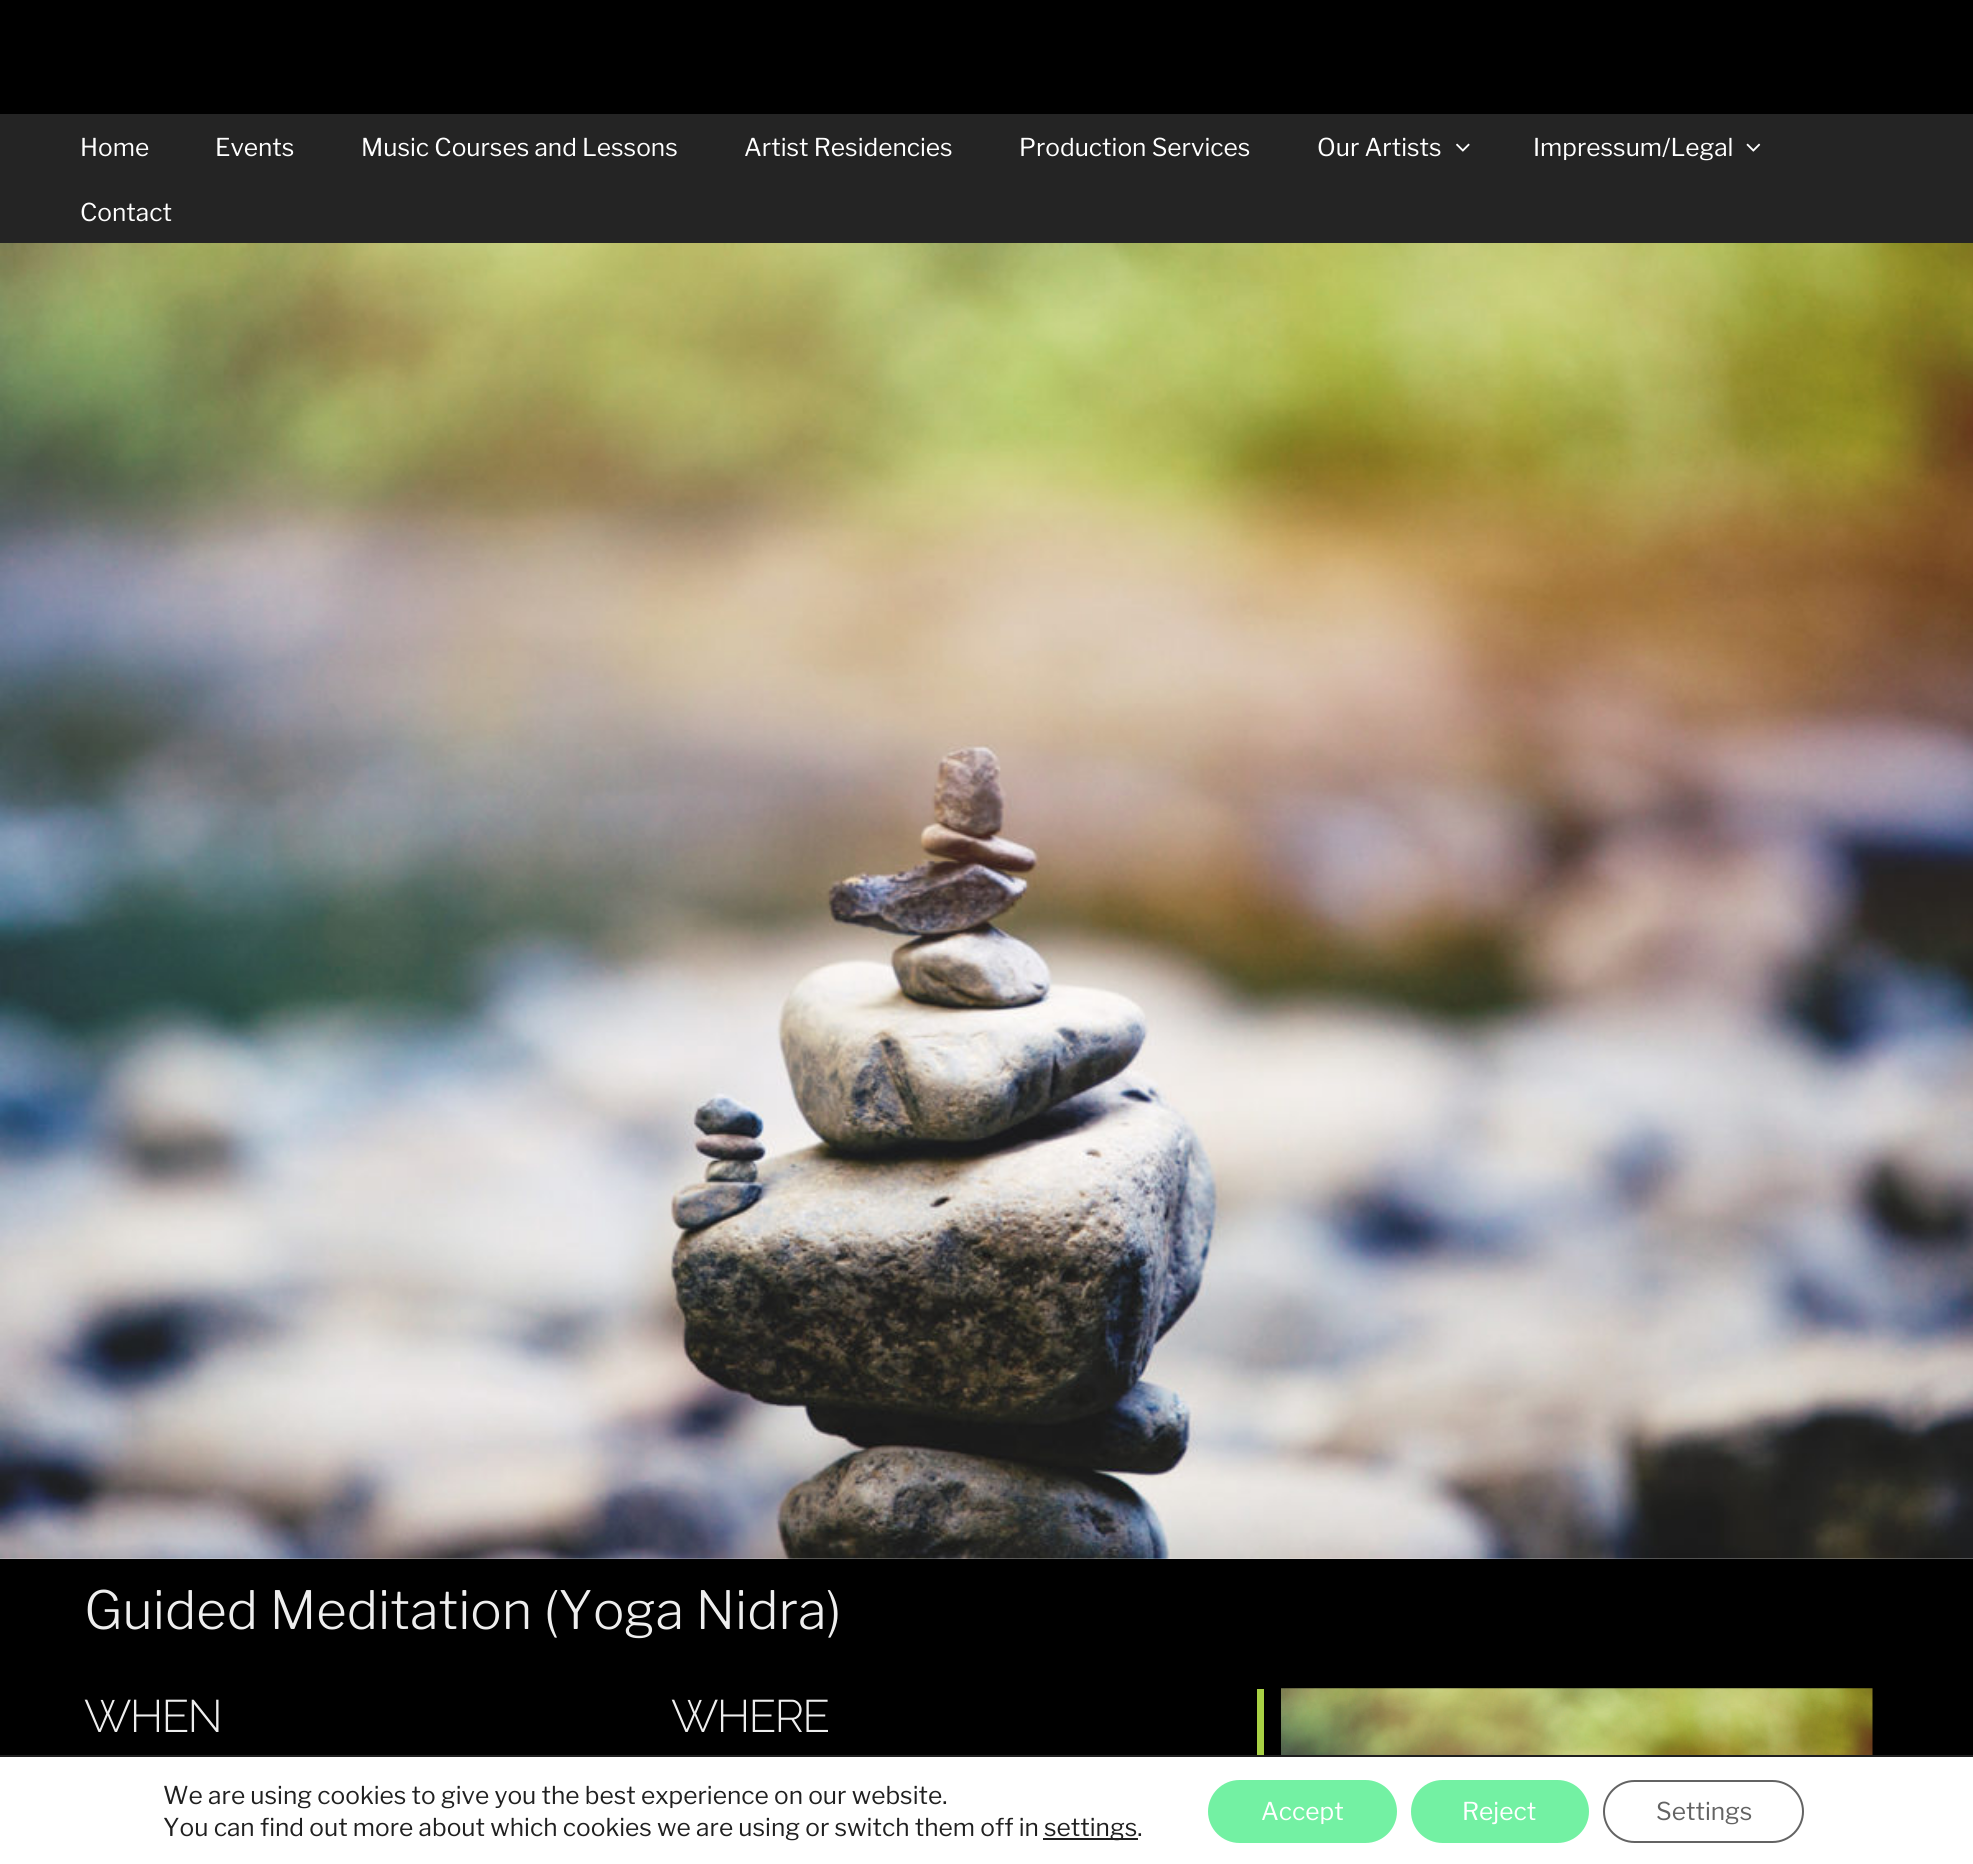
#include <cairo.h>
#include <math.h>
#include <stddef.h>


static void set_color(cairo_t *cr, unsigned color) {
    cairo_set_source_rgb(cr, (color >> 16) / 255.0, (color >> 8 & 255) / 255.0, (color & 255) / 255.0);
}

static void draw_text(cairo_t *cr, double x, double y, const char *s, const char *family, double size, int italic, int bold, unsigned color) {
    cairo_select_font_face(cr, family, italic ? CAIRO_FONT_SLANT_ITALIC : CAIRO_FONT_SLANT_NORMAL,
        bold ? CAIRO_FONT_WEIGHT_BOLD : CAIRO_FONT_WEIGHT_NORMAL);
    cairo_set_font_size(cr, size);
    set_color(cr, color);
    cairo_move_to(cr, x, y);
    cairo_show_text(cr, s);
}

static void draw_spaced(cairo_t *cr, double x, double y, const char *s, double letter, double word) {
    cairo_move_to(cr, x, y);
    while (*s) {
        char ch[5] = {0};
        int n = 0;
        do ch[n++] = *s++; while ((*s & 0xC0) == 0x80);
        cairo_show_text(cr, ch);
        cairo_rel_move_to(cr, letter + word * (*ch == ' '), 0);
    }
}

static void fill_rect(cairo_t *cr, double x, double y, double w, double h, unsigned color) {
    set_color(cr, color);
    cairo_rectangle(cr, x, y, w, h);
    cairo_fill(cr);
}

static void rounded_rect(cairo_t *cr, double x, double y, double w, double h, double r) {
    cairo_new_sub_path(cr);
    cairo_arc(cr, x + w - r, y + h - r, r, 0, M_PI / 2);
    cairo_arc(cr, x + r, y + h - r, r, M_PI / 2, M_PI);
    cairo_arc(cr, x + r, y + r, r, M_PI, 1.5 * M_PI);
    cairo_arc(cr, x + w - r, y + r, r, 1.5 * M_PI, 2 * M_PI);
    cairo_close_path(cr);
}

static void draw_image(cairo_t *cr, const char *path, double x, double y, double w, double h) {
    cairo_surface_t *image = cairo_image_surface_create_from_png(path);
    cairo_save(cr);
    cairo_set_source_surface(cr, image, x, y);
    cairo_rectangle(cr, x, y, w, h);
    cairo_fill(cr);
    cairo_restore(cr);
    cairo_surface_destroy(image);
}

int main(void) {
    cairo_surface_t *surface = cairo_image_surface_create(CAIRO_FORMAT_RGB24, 1973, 1864);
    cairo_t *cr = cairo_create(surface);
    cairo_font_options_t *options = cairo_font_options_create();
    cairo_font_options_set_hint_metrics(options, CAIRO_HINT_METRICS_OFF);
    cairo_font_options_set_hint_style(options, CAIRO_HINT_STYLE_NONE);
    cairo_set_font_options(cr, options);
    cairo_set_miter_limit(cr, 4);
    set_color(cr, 0xFFFFFF);
    cairo_paint(cr);
    fill_rect(cr, 0, 0, 1973, 114, 0x000000);
    fill_rect(cr, 0, 114, 1973, 129, 0x242424);
    draw_text(cr, 80, 156, "Home", "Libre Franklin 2 Thin", 24.5, 0, 0, 0xFFFFFF);
    draw_text(cr, 215, 156, "Events", "Libre Franklin 2 Thin", 24.5, 0, 0, 0xFFFFFF);
    draw_text(cr, 361, 156, "Music Courses and Lessons", "Libre Franklin 2 Thin", 24.5, 0, 0, 0xFFFFFF);
    draw_text(cr, 744, 156, "Artist Residencies", "Libre Franklin 2 Thin", 24.5, 0, 0, 0xFFFFFF);
    draw_text(cr, 1019, 156, "Production Services", "Libre Franklin 2 Thin", 24.5, 0, 0, 0xFFFFFF);
    draw_text(cr, 1317, 156, "Our Artists", "Libre Franklin 2 Thin", 24.5, 0, 0, 0xFFFFFF);
    draw_image(cr, "assets/img1.png", 1456, 143, 14, 9);
    draw_text(cr, 1533, 156, "Impressum/Legal", "Libre Franklin 2 Thin", 24.5, 0, 0, 0xFFFFFF);
    draw_image(cr, "assets/img2.png", 1746, 143, 15, 9);
    draw_text(cr, 80, 221, "Contact", "Libre Franklin 2 Thin", 24.5, 0, 0, 0xFFFFFF);
    draw_image(cr, "assets/img3.png", 0, 243, 1973, 1316);
    fill_rect(cr, 0, 1559, 1973, 196, 0x000000);
    draw_text(cr, 84, 1629, "Guided Meditation (Yoga Nidra)", "Libre Franklin Thin", 52.5, 0, 0, 0xEEEEEE);
    cairo_select_font_face(cr, "Raleway Light", CAIRO_FONT_SLANT_NORMAL, CAIRO_FONT_WEIGHT_NORMAL);
    cairo_set_font_size(cr, 45.5);
    draw_spaced(cr, 84, 1732, "WHEN", -1.75, 0);
    draw_spaced(cr, 671, 1732, "WHERE", -1.75, 0);
    fill_rect(cr, 1257, 1689, 7, 66, 0xA8D144);
    draw_image(cr, "assets/img4.png", 1281, 1688, 592, 67);
    fill_rect(cr, 0, 1755, 1973, 2, 0x202020);
    draw_text(cr, 163, 1804, "We are using cookies to give you the best experience on our website.", "Libre Franklin 2 Thin", 24.5, 0, 0, 0x202020);
    draw_text(cr, 163, 1836, "You can find out more about which cookies we are using or switch them off in", "Libre Franklin 2 Thin", 24.5, 0, 0, 0x202020);
    fill_rect(cr, 1043, 1838, 95, 2, 0x202020);
    draw_text(cr, 1044, 1836, "settings.", "Libre Franklin 2 Thin", 24.5, 0, 0, 0x202020);
    set_color(cr, 0x73F1A3);
    rounded_rect(cr, 1208, 1780, 189, 63, 31.5);
    cairo_fill(cr);
    draw_text(cr, 1261, 1820, "Accept", "Libre Franklin 2 Thin", 24.5, 0, 0, 0xFFFFFF);
    set_color(cr, 0x73F1A3);
    rounded_rect(cr, 1411, 1780, 178, 63, 31.5);
    cairo_fill(cr);
    draw_text(cr, 1462, 1820, "Reject", "Libre Franklin 2 Thin", 24.5, 0, 0, 0xFFFFFF);
    rounded_rect(cr, 1604, 1781, 199, 61, 30.5);
    set_color(cr, 0x636363);
    cairo_stroke(cr);
    draw_text(cr, 1656, 1820, "Settings", "Libre Franklin 2 Thin", 24.5, 0, 0, 0x636363);
    cairo_surface_write_to_png(surface, "output.png");
    cairo_font_options_destroy(options);
    cairo_destroy(cr);
    cairo_surface_destroy(surface);
    return 0;
}
